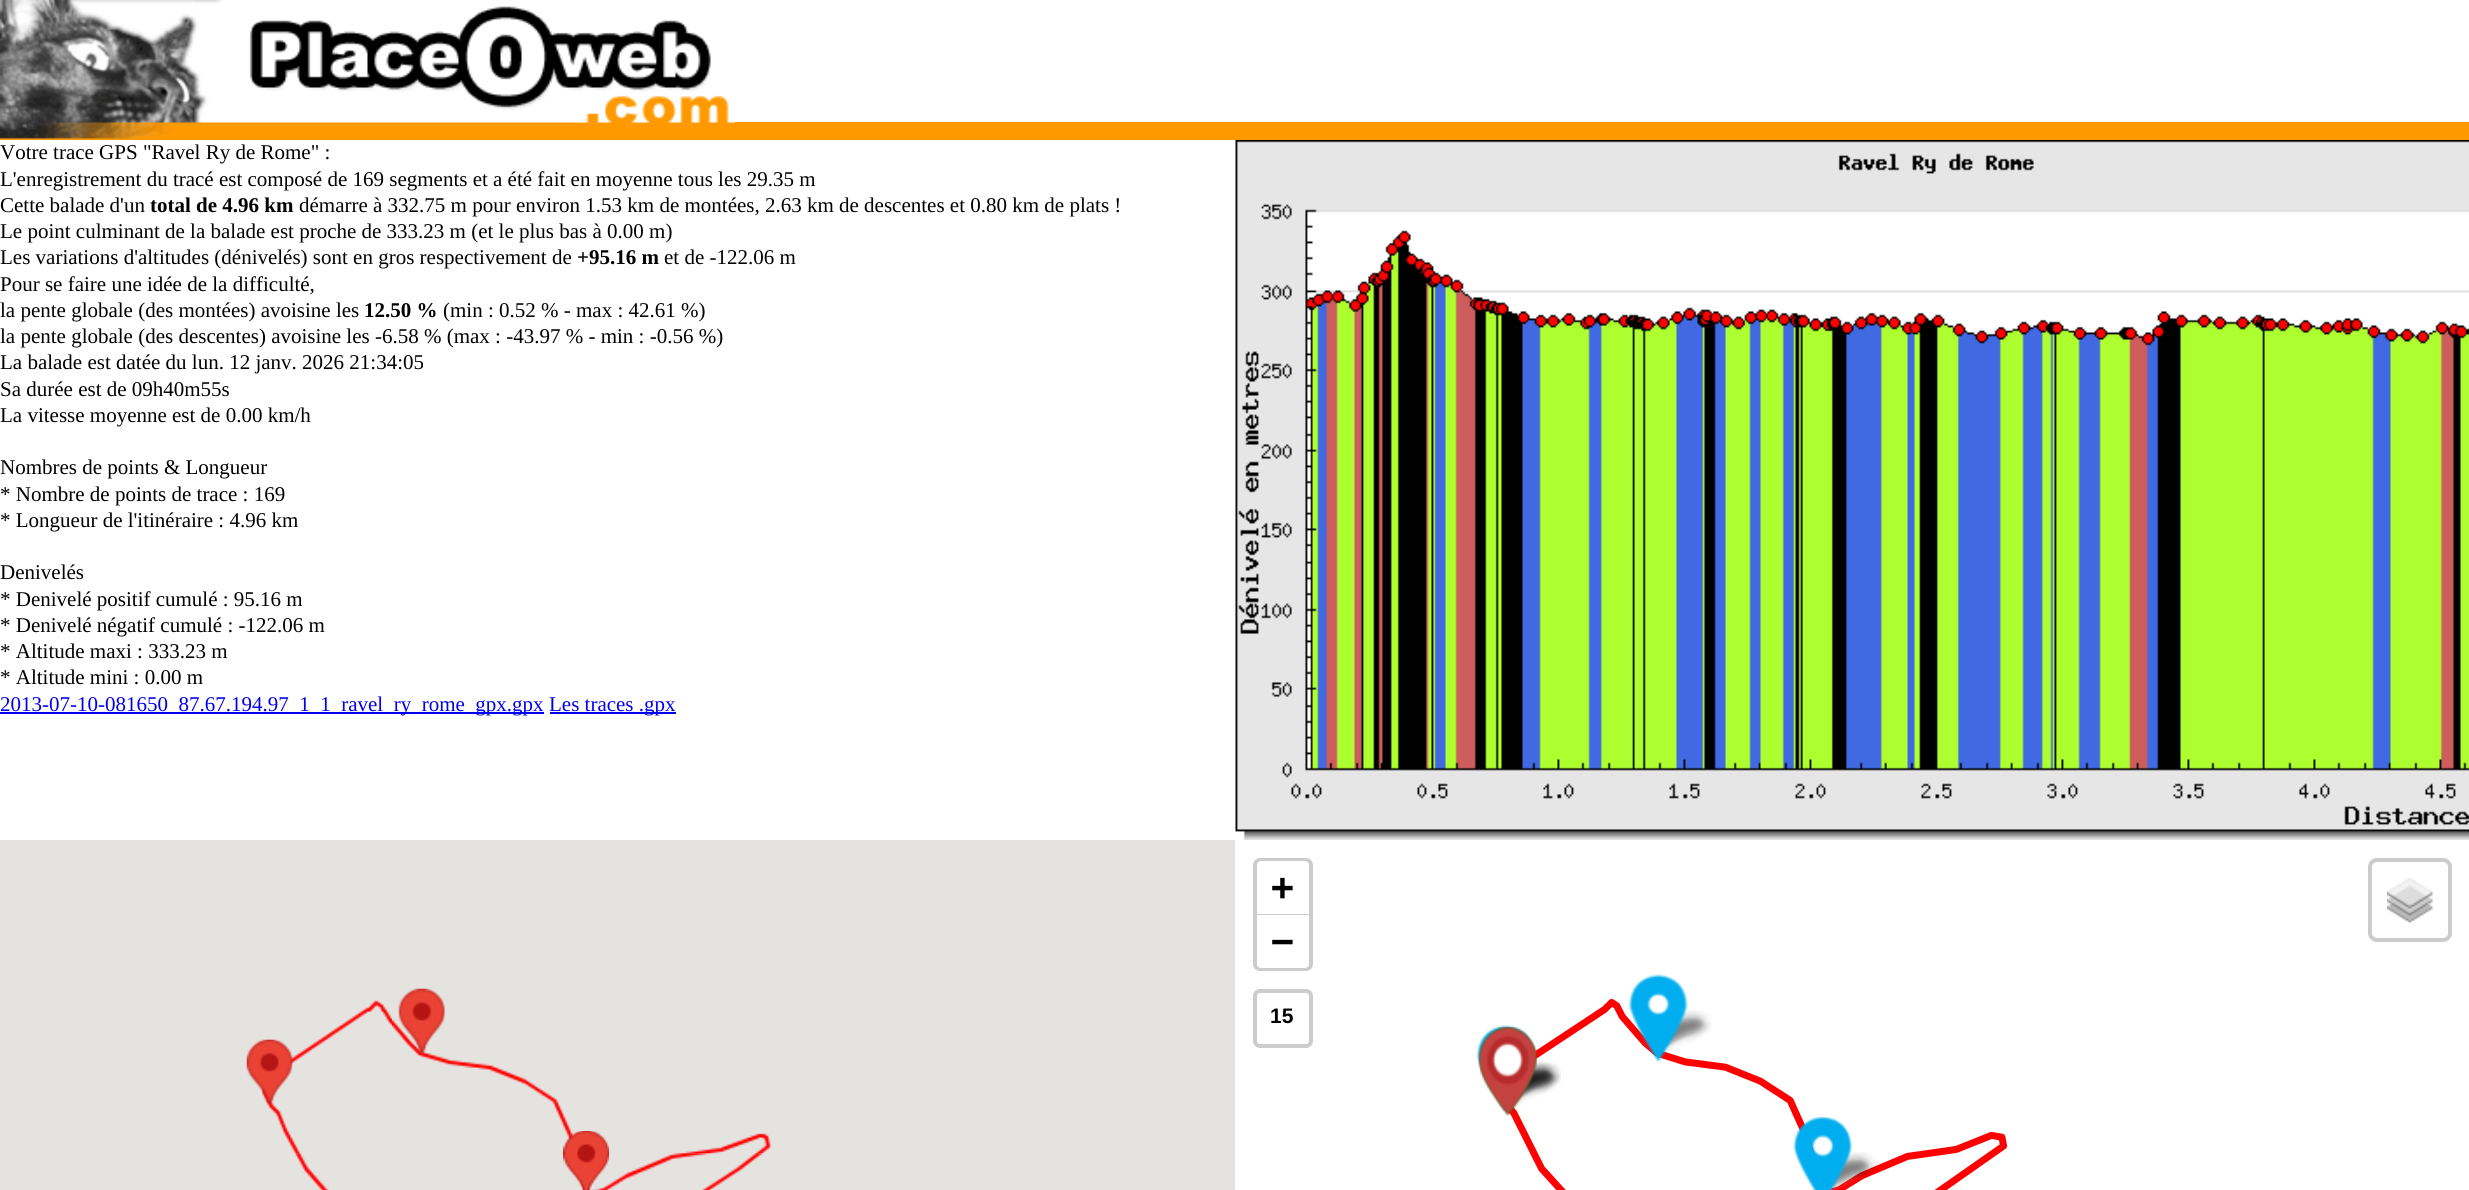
#include <cairo.h>
#include <math.h>
#include <stddef.h>


static void set_color(cairo_t *cr, unsigned color) {
    cairo_set_source_rgb(cr, (color >> 16) / 255.0, (color >> 8 & 255) / 255.0, (color & 255) / 255.0);
}

static void draw_text(cairo_t *cr, double x, double y, const char *s, const char *family, double size, int italic, int bold, unsigned color) {
    cairo_select_font_face(cr, family, italic ? CAIRO_FONT_SLANT_ITALIC : CAIRO_FONT_SLANT_NORMAL,
        bold ? CAIRO_FONT_WEIGHT_BOLD : CAIRO_FONT_WEIGHT_NORMAL);
    cairo_set_font_size(cr, size);
    set_color(cr, color);
    cairo_move_to(cr, x, y);
    cairo_show_text(cr, s);
}

static void fill_rect(cairo_t *cr, double x, double y, double w, double h, unsigned color) {
    set_color(cr, color);
    cairo_rectangle(cr, x, y, w, h);
    cairo_fill(cr);
}

static void rounded_rect(cairo_t *cr, double x, double y, double w, double h, double r) {
    cairo_new_sub_path(cr);
    cairo_arc(cr, x + w - r, y + h - r, r, 0, M_PI / 2);
    cairo_arc(cr, x + r, y + h - r, r, M_PI / 2, M_PI);
    cairo_arc(cr, x + r, y + r, r, M_PI, 1.5 * M_PI);
    cairo_arc(cr, x + w - r, y + r, r, 1.5 * M_PI, 2 * M_PI);
    cairo_close_path(cr);
}

static void draw_image(cairo_t *cr, const char *path, double x, double y, double w, double h) {
    cairo_surface_t *image = cairo_image_surface_create_from_png(path);
    cairo_save(cr);
    cairo_set_source_surface(cr, image, x, y);
    cairo_rectangle(cr, x, y, w, h);
    cairo_fill(cr);
    cairo_restore(cr);
    cairo_surface_destroy(image);
}

int main(void) {
    cairo_surface_t *surface = cairo_image_surface_create(CAIRO_FORMAT_RGB24, 2469, 1190);
    cairo_t *cr = cairo_create(surface);
    cairo_font_options_t *options = cairo_font_options_create();
    cairo_font_options_set_hint_metrics(options, CAIRO_HINT_METRICS_OFF);
    cairo_font_options_set_hint_style(options, CAIRO_HINT_STYLE_NONE);
    cairo_set_font_options(cr, options);
    cairo_set_miter_limit(cr, 4);
    set_color(cr, 0xFFFFFF);
    cairo_paint(cr);
    fill_rect(cr, 0, 122, 2469, 18, 0xFF9900);
    draw_image(cr, "assets/img1.png", 0, 0, 735, 139);
    draw_text(cr, 0, 159, "Votre trace GPS \"Ravel Ry de Rome\" :", "Liberation Serif", 21, 0, 0, 0x000000);
    draw_text(cr, 0, 186, "L'enregistrement du tracé est composé de 169 segments et a été fait en moyenne tous les 29.35 m", "Liberation Serif", 21, 0, 0, 0x000000);
    draw_text(cr, 0, 212, "Cette balade d'un", "Liberation Serif", 21, 0, 0, 0x000000);
    draw_text(cr, 150, 212, "total de 4.96 km", "Liberation Serif", 21, 0, 1, 0x000000);
    draw_text(cr, 299, 212, "démarre à 332.75 m pour environ 1.53 km de montées, 2.63 km de descentes et 0.80 km de plats !", "Liberation Serif", 21, 0, 0, 0x000000);
    draw_text(cr, 0, 238, "Le point culminant de la balade est proche de 333.23 m (et le plus bas à 0.00 m)", "Liberation Serif", 21, 0, 0, 0x000000);
    draw_text(cr, 0, 264, "Les variations d'altitudes (dénivelés) sont en gros respectivement de", "Liberation Serif", 21, 0, 0, 0x000000);
    draw_text(cr, 577, 264, "+95.16 m", "Liberation Serif", 21, 0, 1, 0x000000);
    draw_text(cr, 664, 264, "et de -122.06 m", "Liberation Serif", 21, 0, 0, 0x000000);
    draw_text(cr, 0, 291, "Pour se faire une idée de la difficulté,", "Liberation Serif", 21, 0, 0, 0x000000);
    draw_text(cr, 0, 317, "la pente globale (des montées) avoisine les", "Liberation Serif", 21, 0, 0, 0x000000);
    draw_text(cr, 364, 317, "12.50 %", "Liberation Serif", 21, 0, 1, 0x000000);
    draw_text(cr, 443, 317, "(min : 0.52 % - max : 42.61 %)", "Liberation Serif", 21, 0, 0, 0x000000);
    draw_text(cr, 0, 343, "la pente globale (des descentes) avoisine les -6.58 % (max : -43.97 % - min : -0.56 %)", "Liberation Serif", 21, 0, 0, 0x000000);
    draw_text(cr, 0, 369, "La balade est datée du lun. 12 janv. 2026 21:34:05", "Liberation Serif", 21, 0, 0, 0x000000);
    draw_text(cr, 0, 396, "Sa durée est de 09h40m55s", "Liberation Serif", 21, 0, 0, 0x000000);
    draw_text(cr, 0, 422, "La vitesse moyenne est de 0.00 km/h", "Liberation Serif", 21, 0, 0, 0x000000);
    draw_text(cr, 0, 474, "Nombres de points & Longueur", "Liberation Serif", 21, 0, 0, 0x000000);
    draw_text(cr, 0, 501, "* Nombre de points de trace : 169", "Liberation Serif", 21, 0, 0, 0x000000);
    draw_text(cr, 0, 527, "* Longueur de l'itinéraire : 4.96 km", "Liberation Serif", 21, 0, 0, 0x000000);
    draw_text(cr, 0, 579, "Denivelés", "Liberation Serif", 21, 0, 0, 0x000000);
    draw_text(cr, 0, 606, "* Denivelé positif cumulé : 95.16 m", "Liberation Serif", 21, 0, 0, 0x000000);
    draw_text(cr, 0, 632, "* Denivelé négatif cumulé : -122.06 m", "Liberation Serif", 21, 0, 0, 0x000000);
    draw_text(cr, 0, 658, "* Altitude maxi : 333.23 m", "Liberation Serif", 21, 0, 0, 0x000000);
    draw_text(cr, 0, 684, "* Altitude mini : 0.00 m", "Liberation Serif", 21, 0, 0, 0x000000);
    fill_rect(cr, 0, 712, 544, 2, 0x0000EE);
    draw_text(cr, 0, 711, "2013-07-10-081650_87.67.194.97_1_1_ravel_ry_rome_gpx.gpx", "Liberation Serif", 21, 0, 0, 0x0000EE);
    fill_rect(cr, 550, 712, 126, 2, 0x0000EE);
    draw_text(cr, 549, 711, "Les traces .gpx", "Liberation Serif", 21, 0, 0, 0x0000EE);
    draw_image(cr, "assets/img2.png", 1235, 140, 1234, 700);
    fill_rect(cr, 0, 840, 1235, 350, 0xE5E3DF);
    draw_image(cr, "assets/img9.png", 579, 1153, 184, 37);
    draw_image(cr, "assets/img7.png", 392, 1019, 379, 135);
    draw_image(cr, "assets/img3.png", 398, 988, 47, 66);
    draw_image(cr, "assets/img8.png", 295, 1153, 34, 37);
    draw_image(cr, "assets/img6.png", 262, 1000, 130, 154);
    draw_image(cr, "assets/img4.png", 246, 1039, 47, 66);
    draw_image(cr, "assets/img5.png", 563, 1131, 46, 59);
    draw_image(cr, "assets/img11.png", 1627, 840, 449, 313);
    draw_image(cr, "assets/img10.png", 1235, 840, 393, 313);
    draw_image(cr, "assets/img13.png", 1627, 1153, 449, 37);
    draw_image(cr, "assets/img12.png", 1235, 1153, 393, 37);
    draw_image(cr, "assets/img19.png", 1496, 998, 512, 192);
    draw_image(cr, "assets/img22.png", 1503, 1063, 58, 45);
    draw_image(cr, "assets/img23.png", 1503, 1063, 58, 45);
    draw_image(cr, "assets/img21.png", 1501, 1061, 58, 45);
    draw_image(cr, "assets/img14.png", 1476, 1025, 60, 89);
    draw_image(cr, "assets/img20.png", 1653, 1010, 59, 45);
    draw_image(cr, "assets/img15.png", 1628, 974, 60, 89);
    draw_image(cr, "assets/img16.png", 1478, 1027, 59, 89);
    draw_image(cr, "assets/img17.png", 1478, 1027, 59, 89);
    draw_image(cr, "assets/img24.png", 1828, 1152, 48, 38);
    draw_image(cr, "assets/img18.png", 1793, 1117, 59, 73);
    rounded_rect(cr, 1255, 860, 56, 109, 5);
    set_color(cr, 0xCCCCCC);
    cairo_set_line_width(cr, 4);
    cairo_stroke(cr);
    set_color(cr, 0xFFFFFF);
    cairo_new_path(cr);
    cairo_move_to(cr, 1261, 861);
    cairo_line_to(cr, 1305, 861);
    cairo_curve_to(cr, 1307, 861, 1309, 863, 1309, 865);
    cairo_line_to(cr, 1309, 915);
    cairo_line_to(cr, 1257, 915);
    cairo_line_to(cr, 1257, 865);
    cairo_curve_to(cr, 1257, 863, 1259, 861, 1261, 861);
    cairo_close_path(cr);
    cairo_fill(cr);
    fill_rect(cr, 1257, 914, 52, 1, 0xCCCCCC);
    draw_text(cr, 1271, 900, "+", "DejaVu Sans Mono", 38, 0, 1, 0x000000);
    set_color(cr, 0xFFFFFF);
    cairo_new_path(cr);
    cairo_move_to(cr, 1257, 915);
    cairo_line_to(cr, 1309, 915);
    cairo_line_to(cr, 1309, 964);
    cairo_curve_to(cr, 1309, 966, 1307, 968, 1305, 968);
    cairo_line_to(cr, 1261, 968);
    cairo_curve_to(cr, 1259, 968, 1257, 966, 1257, 964);
    cairo_close_path(cr);
    cairo_fill(cr);
    draw_text(cr, 1271, 954, "−", "DejaVu Sans Mono", 38, 0, 1, 0x000000);
    rounded_rect(cr, 1255, 991, 56, 55, 5);
    set_color(cr, 0xCCCCCC);
    cairo_stroke(cr);
    draw_text(cr, 1270, 1023, "15", "Liberation Sans", 21, 0, 1, 0x000000);
    rounded_rect(cr, 2370, 860, 80, 80, 7);
    set_color(cr, 0xCCCCCC);
    cairo_stroke(cr);
    draw_image(cr, "assets/img25.png", 2387, 878, 46, 45);
    cairo_surface_write_to_png(surface, "output.png");
    cairo_font_options_destroy(options);
    cairo_destroy(cr);
    cairo_surface_destroy(surface);
    return 0;
}
